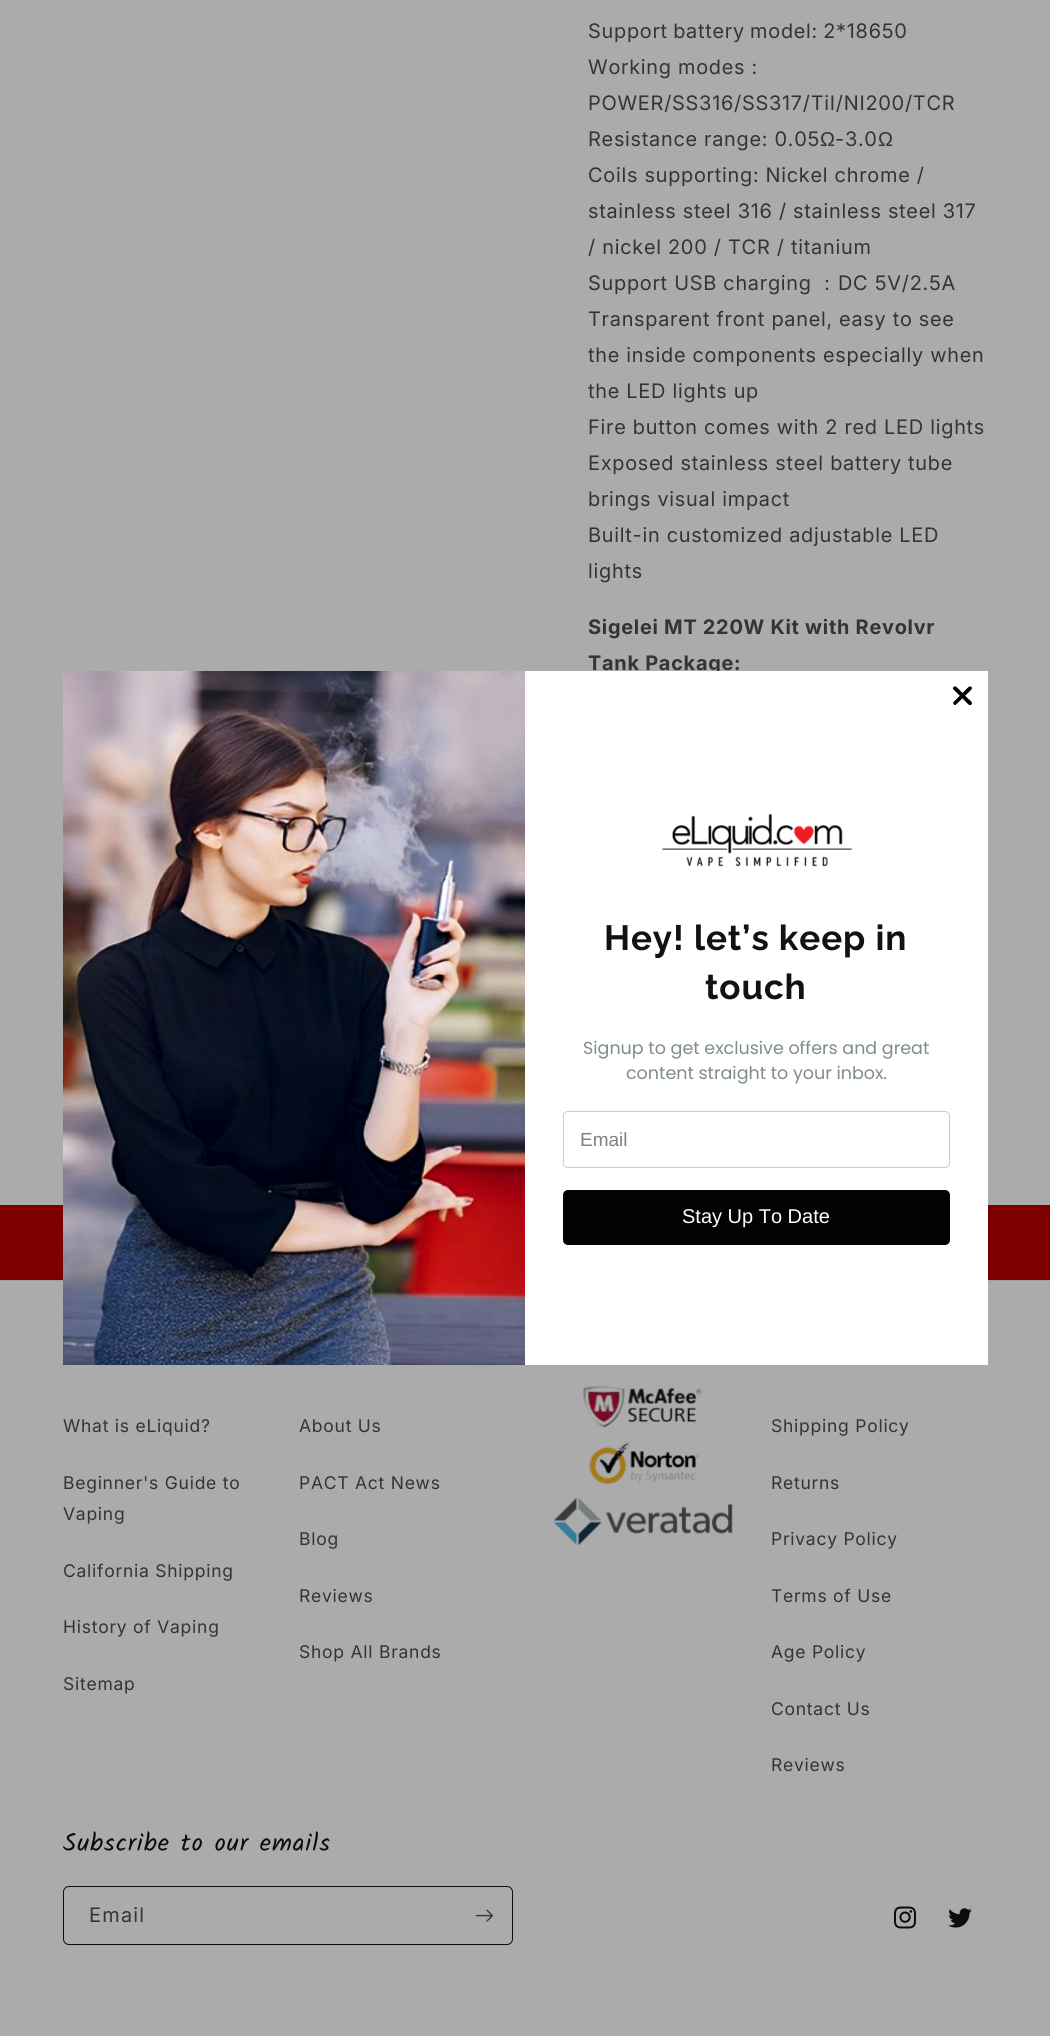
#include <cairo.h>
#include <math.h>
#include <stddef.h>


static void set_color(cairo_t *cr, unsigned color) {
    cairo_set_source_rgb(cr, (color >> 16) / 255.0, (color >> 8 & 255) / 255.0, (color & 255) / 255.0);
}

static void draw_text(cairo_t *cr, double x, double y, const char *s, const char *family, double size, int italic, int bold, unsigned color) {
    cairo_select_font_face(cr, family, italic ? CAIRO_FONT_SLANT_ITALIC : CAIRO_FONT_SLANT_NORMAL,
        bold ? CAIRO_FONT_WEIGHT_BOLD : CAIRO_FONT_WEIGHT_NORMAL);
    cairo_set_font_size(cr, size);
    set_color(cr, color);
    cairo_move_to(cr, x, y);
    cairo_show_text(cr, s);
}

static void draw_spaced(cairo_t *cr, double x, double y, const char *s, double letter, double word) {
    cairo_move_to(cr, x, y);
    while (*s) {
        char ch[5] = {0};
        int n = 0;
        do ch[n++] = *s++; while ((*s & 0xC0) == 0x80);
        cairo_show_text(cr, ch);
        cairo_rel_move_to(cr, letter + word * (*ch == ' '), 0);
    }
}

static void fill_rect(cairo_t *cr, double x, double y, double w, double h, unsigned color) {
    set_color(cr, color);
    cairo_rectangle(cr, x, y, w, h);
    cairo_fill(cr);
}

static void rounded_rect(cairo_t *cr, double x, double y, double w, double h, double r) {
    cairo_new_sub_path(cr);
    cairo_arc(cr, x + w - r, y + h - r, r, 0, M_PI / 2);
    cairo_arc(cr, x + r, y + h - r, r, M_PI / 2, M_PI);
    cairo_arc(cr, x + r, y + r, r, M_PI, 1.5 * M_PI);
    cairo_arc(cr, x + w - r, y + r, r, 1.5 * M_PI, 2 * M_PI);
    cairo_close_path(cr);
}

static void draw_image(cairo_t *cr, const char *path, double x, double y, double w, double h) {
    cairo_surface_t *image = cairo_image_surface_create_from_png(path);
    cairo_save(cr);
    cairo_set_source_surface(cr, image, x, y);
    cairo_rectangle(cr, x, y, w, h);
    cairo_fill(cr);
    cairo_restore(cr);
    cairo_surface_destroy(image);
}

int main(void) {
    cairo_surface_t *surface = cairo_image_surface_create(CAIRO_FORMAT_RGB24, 1050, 2036);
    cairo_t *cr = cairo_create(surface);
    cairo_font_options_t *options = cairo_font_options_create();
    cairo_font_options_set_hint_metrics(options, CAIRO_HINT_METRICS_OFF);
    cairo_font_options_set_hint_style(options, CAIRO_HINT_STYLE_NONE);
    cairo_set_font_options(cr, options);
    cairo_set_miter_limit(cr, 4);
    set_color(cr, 0xABABAB);
    cairo_paint(cr);
    cairo_select_font_face(cr, "Inter", CAIRO_FONT_SLANT_NORMAL, CAIRO_FONT_WEIGHT_NORMAL);
    cairo_set_font_size(cr, 20);
    set_color(cr, 0x343434);
    draw_spaced(cr, 588, 38, "Support battery model: 2*18650", 0.75, -1);
    draw_spaced(cr, 588, 74, "Working modes :", 0.75, 0);
    draw_spaced(cr, 588, 110, "POWER/SS316/SS317/TiI/NI200/TCR", 0.75, 0);
    draw_spaced(cr, 588, 146, "Resistance range: 0.05", 0.75, 0);
    cairo_select_font_face(cr, "Liberation Sans", CAIRO_FONT_SLANT_NORMAL, CAIRO_FONT_WEIGHT_NORMAL);
    draw_spaced(cr, 820, 146, "Ω", 0.75, 0);
    cairo_select_font_face(cr, "Inter", CAIRO_FONT_SLANT_NORMAL, CAIRO_FONT_WEIGHT_NORMAL);
    draw_spaced(cr, 835, 146, "-3.0", 0.75, 0);
    cairo_select_font_face(cr, "Liberation Sans", CAIRO_FONT_SLANT_NORMAL, CAIRO_FONT_WEIGHT_NORMAL);
    draw_spaced(cr, 878, 146, "Ω", 0.75, 0);
    cairo_select_font_face(cr, "Inter", CAIRO_FONT_SLANT_NORMAL, CAIRO_FONT_WEIGHT_NORMAL);
    draw_spaced(cr, 588, 182, "Coils supporting: Nickel chrome /", 0.75, 0);
    draw_spaced(cr, 588, 218, "stainless steel 316 / stainless steel 317", 0.75, 0);
    draw_spaced(cr, 588, 254, "/ nickel 200 / TCR / titanium", 0.75, 0);
    draw_spaced(cr, 588, 290, "Support USB charging", 0.75, 0);
    cairo_select_font_face(cr, "WenQuanYi Zen Hei Medium", CAIRO_FONT_SLANT_NORMAL, CAIRO_FONT_WEIGHT_NORMAL);
    draw_spaced(cr, 817, 290, "：", 0.75, 0);
    cairo_select_font_face(cr, "Inter", CAIRO_FONT_SLANT_NORMAL, CAIRO_FONT_WEIGHT_NORMAL);
    draw_spaced(cr, 838, 290, "DC 5V/2.5A", 0.75, 0);
    draw_spaced(cr, 588, 326, "Transparent front panel, easy to see", 0.75, 0);
    draw_spaced(cr, 588, 362, "the inside components especially when", 0.75, 0);
    draw_spaced(cr, 588, 398, "the LED lights up", 0.75, 0);
    draw_spaced(cr, 588, 434, "Fire button comes with 2 red LED lights", 0.75, 0);
    draw_spaced(cr, 588, 470, "Exposed stainless steel battery tube", 0.75, 0);
    draw_spaced(cr, 588, 506, "brings visual impact", 0.75, 0);
    draw_spaced(cr, 588, 542, "Built-in customized adjustable LED", 0.75, 0);
    draw_spaced(cr, 588, 578, "lights", 0.75, 0);
    cairo_select_font_face(cr, "Inter", CAIRO_FONT_SLANT_NORMAL, CAIRO_FONT_WEIGHT_BOLD);
    draw_spaced(cr, 588, 634, "Sigelei MT 220W Kit with Revolvr", 0.75, 0);
    draw_spaced(cr, 588, 670, "Tank Package:", 0.75, 0);
    fill_rect(cr, 0, 1205, 1050, 75, 0x7C0000);
    fill_rect(cr, 0, 1280, 1050, 1, 0x9E9E9E);
    fill_rect(cr, 525, 671, 463, 694, 0xFFFFFF);
    set_color(cr, 0x000000);
    cairo_new_path(cr);
    cairo_move_to(cr, 956.5, 687);
    cairo_line_to(cr, 969, 699.5);
    cairo_curve_to(cr, 970, 700, 973, 702.5, 971.5, 704.5);
    cairo_curve_to(cr, 969.5, 706.5, 967, 703, 966, 702);
    cairo_line_to(cr, 953, 689);
    cairo_curve_to(cr, 952.5, 687, 955, 685.5, 956.5, 687);
    cairo_close_path(cr);
    cairo_fill(cr);
    cairo_new_path(cr);
    cairo_move_to(cr, 953.5, 702);
    cairo_line_to(cr, 966, 689.5);
    cairo_curve_to(cr, 967, 688.5, 969.5, 685, 971.5, 687);
    cairo_curve_to(cr, 973, 688.5, 970, 691, 969, 692);
    cairo_line_to(cr, 955.5, 705);
    cairo_curve_to(cr, 954, 705.5, 952.5, 703, 953.5, 702);
    cairo_close_path(cr);
    cairo_fill(cr);
    draw_image(cr, "assets/img1.png", 63, 671, 462, 694);
    draw_image(cr, "assets/img2.png", 661, 813, 192, 54);
    cairo_select_font_face(cr, "Raleway", CAIRO_FONT_SLANT_NORMAL, CAIRO_FONT_WEIGHT_BOLD);
    cairo_set_font_size(cr, 35);
    set_color(cr, 0x121212);
    draw_spaced(cr, 604, 950, "Hey! let’s keep in", 0.9, 0);
    draw_spaced(cr, 705, 999, "touch", 0.9, 0);
    draw_text(cr, 583, 1054, "Signup to get exclusive offers and great", "Poppins", 17.5, 0, 0, 0x7E8C8D);
    draw_text(cr, 626, 1079, "content straight to your inbox.", "Poppins", 17.5, 0, 0, 0x7E8C8D);
    rounded_rect(cr, 563.5, 1111.5, 386, 56, 4.5);
    set_color(cr, 0xCCCCCC);
    cairo_set_line_width(cr, 1);
    cairo_stroke(cr);
    draw_text(cr, 580, 1146, "Email", "Liberation Sans", 19, 0, 0, 0x808080);
    set_color(cr, 0x020202);
    rounded_rect(cr, 563, 1190, 387, 55, 5);
    cairo_fill(cr);
    draw_text(cr, 682, 1223, "Stay Up To Date", "Liberation Sans", 20, 0, 0, 0xFFFFFF);
    cairo_select_font_face(cr, "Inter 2", CAIRO_FONT_SLANT_NORMAL, CAIRO_FONT_WEIGHT_NORMAL);
    cairo_set_font_size(cr, 17.5);
    set_color(cr, 0x343434);
    draw_spaced(cr, 63, 1432, "What is eLiquid?", 0.75, 0);
    draw_spaced(cr, 63, 1489, "Beginner's Guide to", 0.75, 0);
    draw_spaced(cr, 63, 1520, "Vaping", 0.75, 0);
    draw_spaced(cr, 63, 1577, "California Shipping", 0.75, 0);
    draw_spaced(cr, 63, 1633, "History of Vaping", 0.75, 0);
    draw_spaced(cr, 63, 1690, "Sitemap", 0.75, 0);
    draw_spaced(cr, 299, 1432, "About Us", 0.75, 0);
    draw_spaced(cr, 299, 1489, "PACT Act News", 0.75, 0);
    draw_spaced(cr, 299, 1545, "Blog", 0.75, 0);
    draw_spaced(cr, 299, 1602, "Reviews", 0.75, 0);
    draw_spaced(cr, 299, 1658, "Shop All Brands", 0.75, 0);
    draw_image(cr, "assets/img3.png", 554, 1385, 179, 161);
    draw_spaced(cr, 771, 1432, "Shipping Policy", 0.75, 0);
    draw_spaced(cr, 771, 1489, "Returns", 0.75, 0);
    draw_spaced(cr, 771, 1545, "Privacy Policy", 0.75, 0);
    draw_spaced(cr, 771, 1602, "Terms of Use", 0.75, 0);
    draw_spaced(cr, 771, 1658, "Age Policy", 0.75, 0);
    draw_spaced(cr, 771, 1715, "Contact Us", 0.75, 0);
    draw_spaced(cr, 771, 1771, "Reviews", 0.75, 0);
    cairo_select_font_face(cr, "Kalam", CAIRO_FONT_SLANT_NORMAL, CAIRO_FONT_WEIGHT_NORMAL);
    cairo_set_font_size(cr, 25);
    set_color(cr, 0x0C0C0C);
    draw_spaced(cr, 63, 1851, "Subscribe to our emails", 0.9, 0);
    rounded_rect(cr, 63.5, 1886.5, 449, 58, 5.5);
    cairo_stroke(cr);
    cairo_select_font_face(cr, "Inter", CAIRO_FONT_SLANT_NORMAL, CAIRO_FONT_WEIGHT_NORMAL);
    cairo_set_font_size(cr, 20);
    set_color(cr, 0x343434);
    draw_spaced(cr, 89, 1922, "Email", 1.25, 0);
    draw_image(cr, "assets/img4.png", 475, 1909, 18, 13);
    draw_image(cr, "assets/img5.png", 894, 1906, 22, 23);
    draw_image(cr, "assets/img6.png", 948, 1908, 24, 20);
    cairo_surface_write_to_png(surface, "output.png");
    cairo_font_options_destroy(options);
    cairo_destroy(cr);
    cairo_surface_destroy(surface);
    return 0;
}
